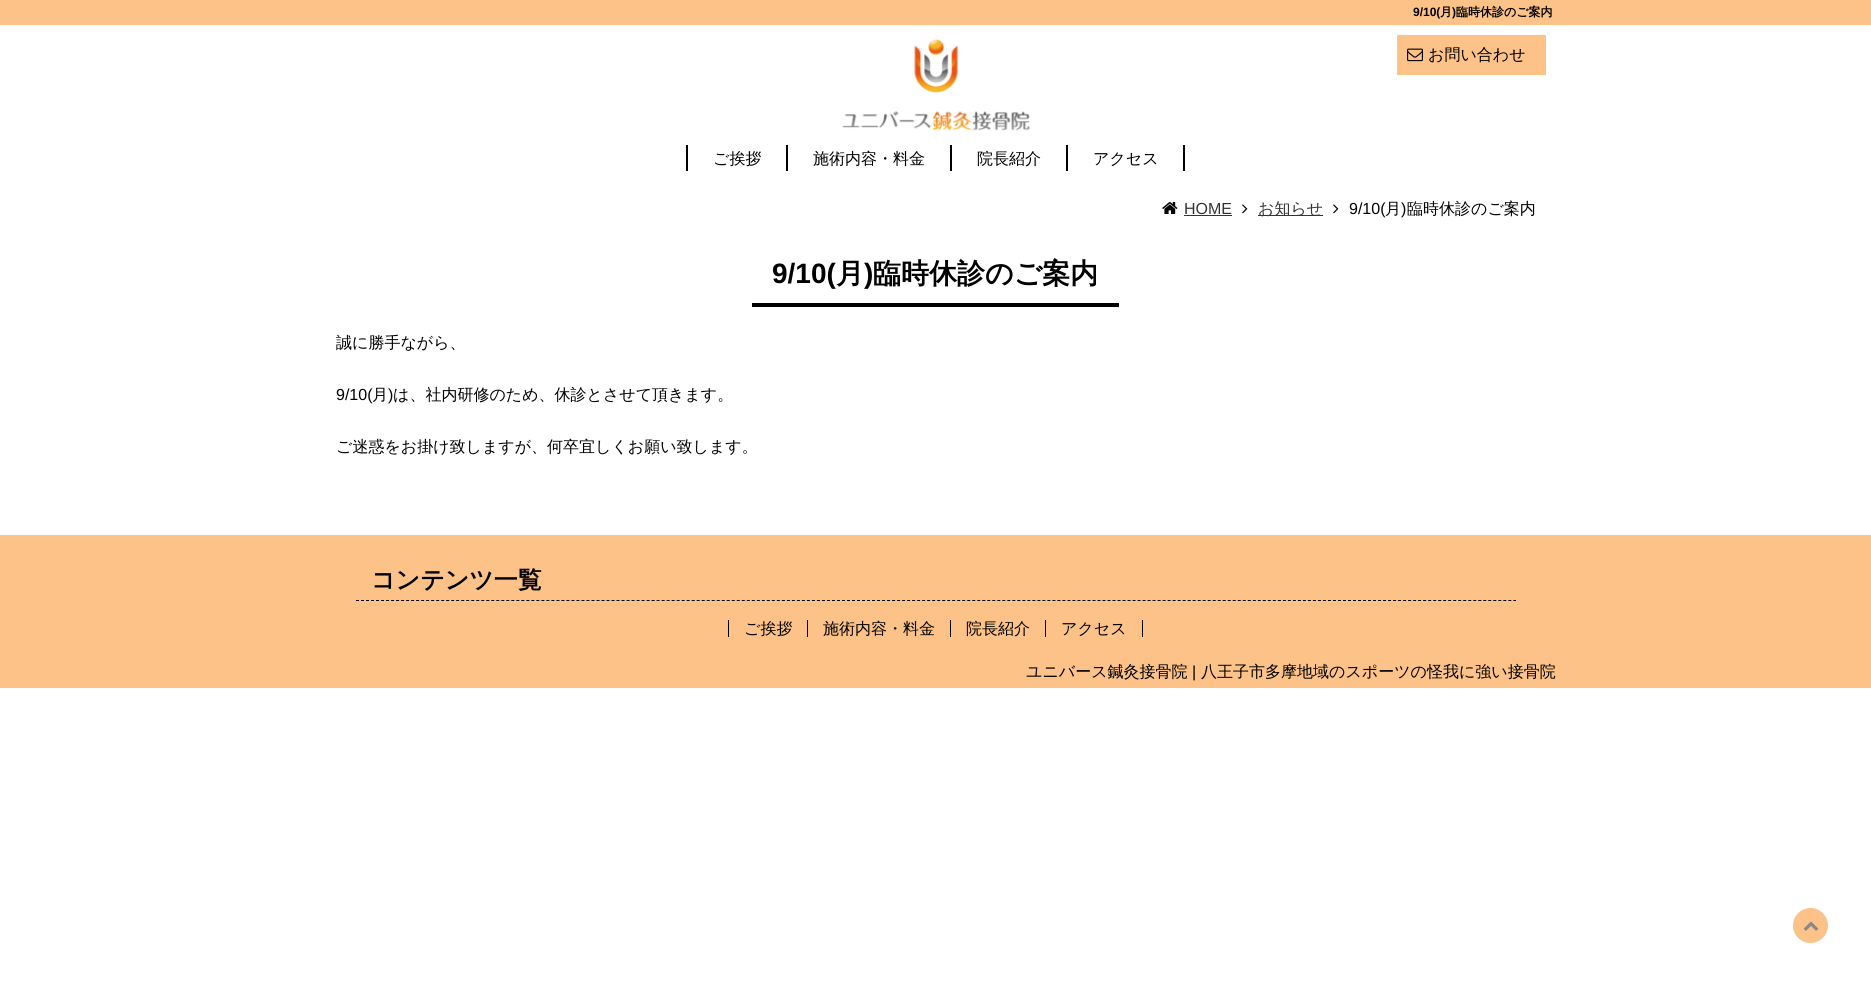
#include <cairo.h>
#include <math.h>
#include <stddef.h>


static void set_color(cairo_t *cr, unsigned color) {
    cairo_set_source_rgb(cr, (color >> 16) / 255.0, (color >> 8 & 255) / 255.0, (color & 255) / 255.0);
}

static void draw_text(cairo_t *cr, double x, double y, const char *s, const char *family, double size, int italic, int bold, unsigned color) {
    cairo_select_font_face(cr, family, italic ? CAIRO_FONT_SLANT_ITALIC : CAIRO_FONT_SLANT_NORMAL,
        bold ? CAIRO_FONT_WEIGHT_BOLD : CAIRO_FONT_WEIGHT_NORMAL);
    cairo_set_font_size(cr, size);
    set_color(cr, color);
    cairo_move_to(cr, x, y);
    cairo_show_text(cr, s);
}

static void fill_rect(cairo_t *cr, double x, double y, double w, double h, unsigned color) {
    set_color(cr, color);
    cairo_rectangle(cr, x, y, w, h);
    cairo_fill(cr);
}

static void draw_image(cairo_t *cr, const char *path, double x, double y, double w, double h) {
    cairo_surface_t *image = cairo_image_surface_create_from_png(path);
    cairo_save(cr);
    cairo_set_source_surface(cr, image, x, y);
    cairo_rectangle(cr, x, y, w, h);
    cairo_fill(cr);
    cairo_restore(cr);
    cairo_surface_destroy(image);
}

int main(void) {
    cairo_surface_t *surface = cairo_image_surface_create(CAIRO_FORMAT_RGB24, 1871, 986);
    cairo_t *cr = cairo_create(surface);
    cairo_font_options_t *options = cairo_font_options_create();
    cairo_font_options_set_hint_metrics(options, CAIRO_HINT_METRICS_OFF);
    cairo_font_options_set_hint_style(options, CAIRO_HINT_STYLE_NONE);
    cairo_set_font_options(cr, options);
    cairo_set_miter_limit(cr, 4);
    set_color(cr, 0xFFFFFF);
    cairo_paint(cr);
    fill_rect(cr, 0, 0, 1871, 25, 0xFCC288);
    draw_text(cr, 1413, 16, "9/10(", "Liberation Sans", 12, 0, 1, 0x000000);
    draw_text(cr, 1440, 16, "月", "WenQuanYi Zen Hei", 12, 0, 1, 0x000000);
    draw_text(cr, 1452, 16, ")", "Liberation Sans", 12, 0, 1, 0x000000);
    draw_text(cr, 1456, 16, "臨時休診のご案内", "WenQuanYi Zen Hei", 12, 0, 1, 0x000000);
    draw_image(cr, "assets/img1.png", 842, 39, 189, 92);
    fill_rect(cr, 1397, 35, 149, 40, 0xFCC288);
    draw_image(cr, "assets/img2.png", 1407, 48, 16, 14);
    draw_text(cr, 1428, 60, "お問い合わせ", "WenQuanYi Zen Hei Medium", 16, 0, 0, 0x000000);
    fill_rect(cr, 786, 145, 2, 26, 0x000000);
    fill_rect(cr, 686, 145, 2, 26, 0x000000);
    draw_text(cr, 713, 164, "ご挨拶", "WenQuanYi Zen Hei Medium", 16, 0, 0, 0x000000);
    fill_rect(cr, 950, 145, 2, 26, 0x000000);
    draw_text(cr, 813, 164, "施術内容・料金", "WenQuanYi Zen Hei Medium", 16, 0, 0, 0x000000);
    fill_rect(cr, 1066, 145, 2, 26, 0x000000);
    draw_text(cr, 977, 164, "院長紹介", "WenQuanYi Zen Hei Medium", 16, 0, 0, 0x000000);
    fill_rect(cr, 1183, 145, 2, 26, 0x000000);
    draw_text(cr, 1093, 164, "アクセス", "WenQuanYi Zen Hei Medium", 16, 0, 0, 0x000000);
    draw_image(cr, "assets/img3.png", 1162, 202, 16, 12);
    draw_text(cr, 1184, 214, "HOME", "Liberation Sans", 16, 0, 0, 0x333333);
    fill_rect(cr, 1184, 215, 48, 1, 0x333333);
    draw_image(cr, "assets/img4.png", 1242, 204, 6, 10);
    fill_rect(cr, 1258, 215, 65, 1, 0x333333);
    draw_text(cr, 1258, 214, "お知らせ", "WenQuanYi Zen Hei Medium", 16, 0, 0, 0x333333);
    draw_image(cr, "assets/img4.png", 1333, 204, 6, 10);
    draw_text(cr, 1349, 214, "9/10(", "Liberation Sans", 16, 0, 0, 0x000000);
    draw_text(cr, 1385, 214, "月", "WenQuanYi Zen Hei Medium", 16, 0, 0, 0x000000);
    draw_text(cr, 1401, 214, ")", "Liberation Sans", 16, 0, 0, 0x000000);
    draw_text(cr, 1407, 214, "臨時休診のご案内", "WenQuanYi Zen Hei Medium", 16, 0, 0, 0x000000);
    fill_rect(cr, 752, 303, 367, 4, 0x000000);
    draw_text(cr, 772, 283, "9/10(", "Liberation Sans", 28, 0, 1, 0x000000);
    draw_text(cr, 836, 283, "月", "WenQuanYi Zen Hei", 28, 0, 1, 0x000000);
    draw_text(cr, 864, 283, ")", "Liberation Sans", 28, 0, 1, 0x000000);
    draw_text(cr, 873, 283, "臨時休診のご案内", "WenQuanYi Zen Hei", 28, 0, 1, 0x000000);
    draw_text(cr, 336, 348, "誠に勝手ながら、", "WenQuanYi Zen Hei Medium", 16, 0, 0, 0x000000);
    draw_text(cr, 336, 400, "9/10(", "Liberation Sans", 16, 0, 0, 0x000000);
    draw_text(cr, 372, 400, "月", "WenQuanYi Zen Hei Medium", 16, 0, 0, 0x000000);
    draw_text(cr, 388, 400, ")", "Liberation Sans", 16, 0, 0, 0x000000);
    draw_text(cr, 393, 400, "は、社内研修のため、休診とさせて頂きます。", "WenQuanYi Zen Hei Medium", 16, 0, 0, 0x000000);
    draw_text(cr, 336, 452, "ご迷惑をお掛け致しますが、何卒宜しくお願い致します。", "WenQuanYi Zen Hei Medium", 16, 0, 0, 0x000000);
    fill_rect(cr, 0, 535, 1871, 153, 0xFCC288);
    cairo_new_path(cr);
    cairo_move_to(cr, 356, 600.5);
    cairo_line_to(cr, 1516, 600.5);
    set_color(cr, 0x000000);
    cairo_set_line_width(cr, 1);
    cairo_set_dash(cr, (double[]){3, 2.01}, 2, 0);
    cairo_stroke(cr);
    draw_text(cr, 371, 588, "コンテンツ一覧", "WenQuanYi Zen Hei", 24, 0, 1, 0x000000);
    draw_text(cr, 744, 634, "ご挨拶", "WenQuanYi Zen Hei Medium", 16, 0, 0, 0x000000);
    fill_rect(cr, 807, 620, 1, 17, 0x000000);
    fill_rect(cr, 728, 620, 1, 17, 0x000000);
    draw_text(cr, 823, 634, "施術内容・料金", "WenQuanYi Zen Hei Medium", 16, 0, 0, 0x000000);
    fill_rect(cr, 950, 620, 1, 17, 0x000000);
    draw_text(cr, 966, 634, "院長紹介", "WenQuanYi Zen Hei Medium", 16, 0, 0, 0x000000);
    fill_rect(cr, 1045, 620, 1, 17, 0x000000);
    draw_text(cr, 1061, 634, "アクセス", "WenQuanYi Zen Hei Medium", 16, 0, 0, 0x000000);
    fill_rect(cr, 1142, 620, 1, 17, 0x000000);
    draw_text(cr, 1026, 677, "ユニバース鍼灸接骨院", "WenQuanYi Zen Hei Medium", 16, 0, 0, 0x000000);
    draw_text(cr, 1192, 677, "|", "Liberation Sans", 16, 0, 0, 0x000000);
    draw_text(cr, 1201, 677, "八王子市多摩地域のスポーツの怪我に強い接骨院", "WenQuanYi Zen Hei Medium", 16, 0, 0, 0x000000);
    set_color(cr, 0xFCC288);
    cairo_new_path(cr);
    cairo_arc(cr, 1810.5, 925.5, 19, 0, 2 * M_PI);
    cairo_fill_preserve(cr);
    set_color(cr, 0xFFFFFF);
    cairo_set_line_width(cr, 3);
    cairo_set_dash(cr, NULL, 0, 0);
    cairo_stroke(cr);
    draw_image(cr, "assets/img5.png", 1803, 921, 16, 10);
    cairo_surface_write_to_png(surface, "output.png");
    cairo_font_options_destroy(options);
    cairo_destroy(cr);
    cairo_surface_destroy(surface);
    return 0;
}
